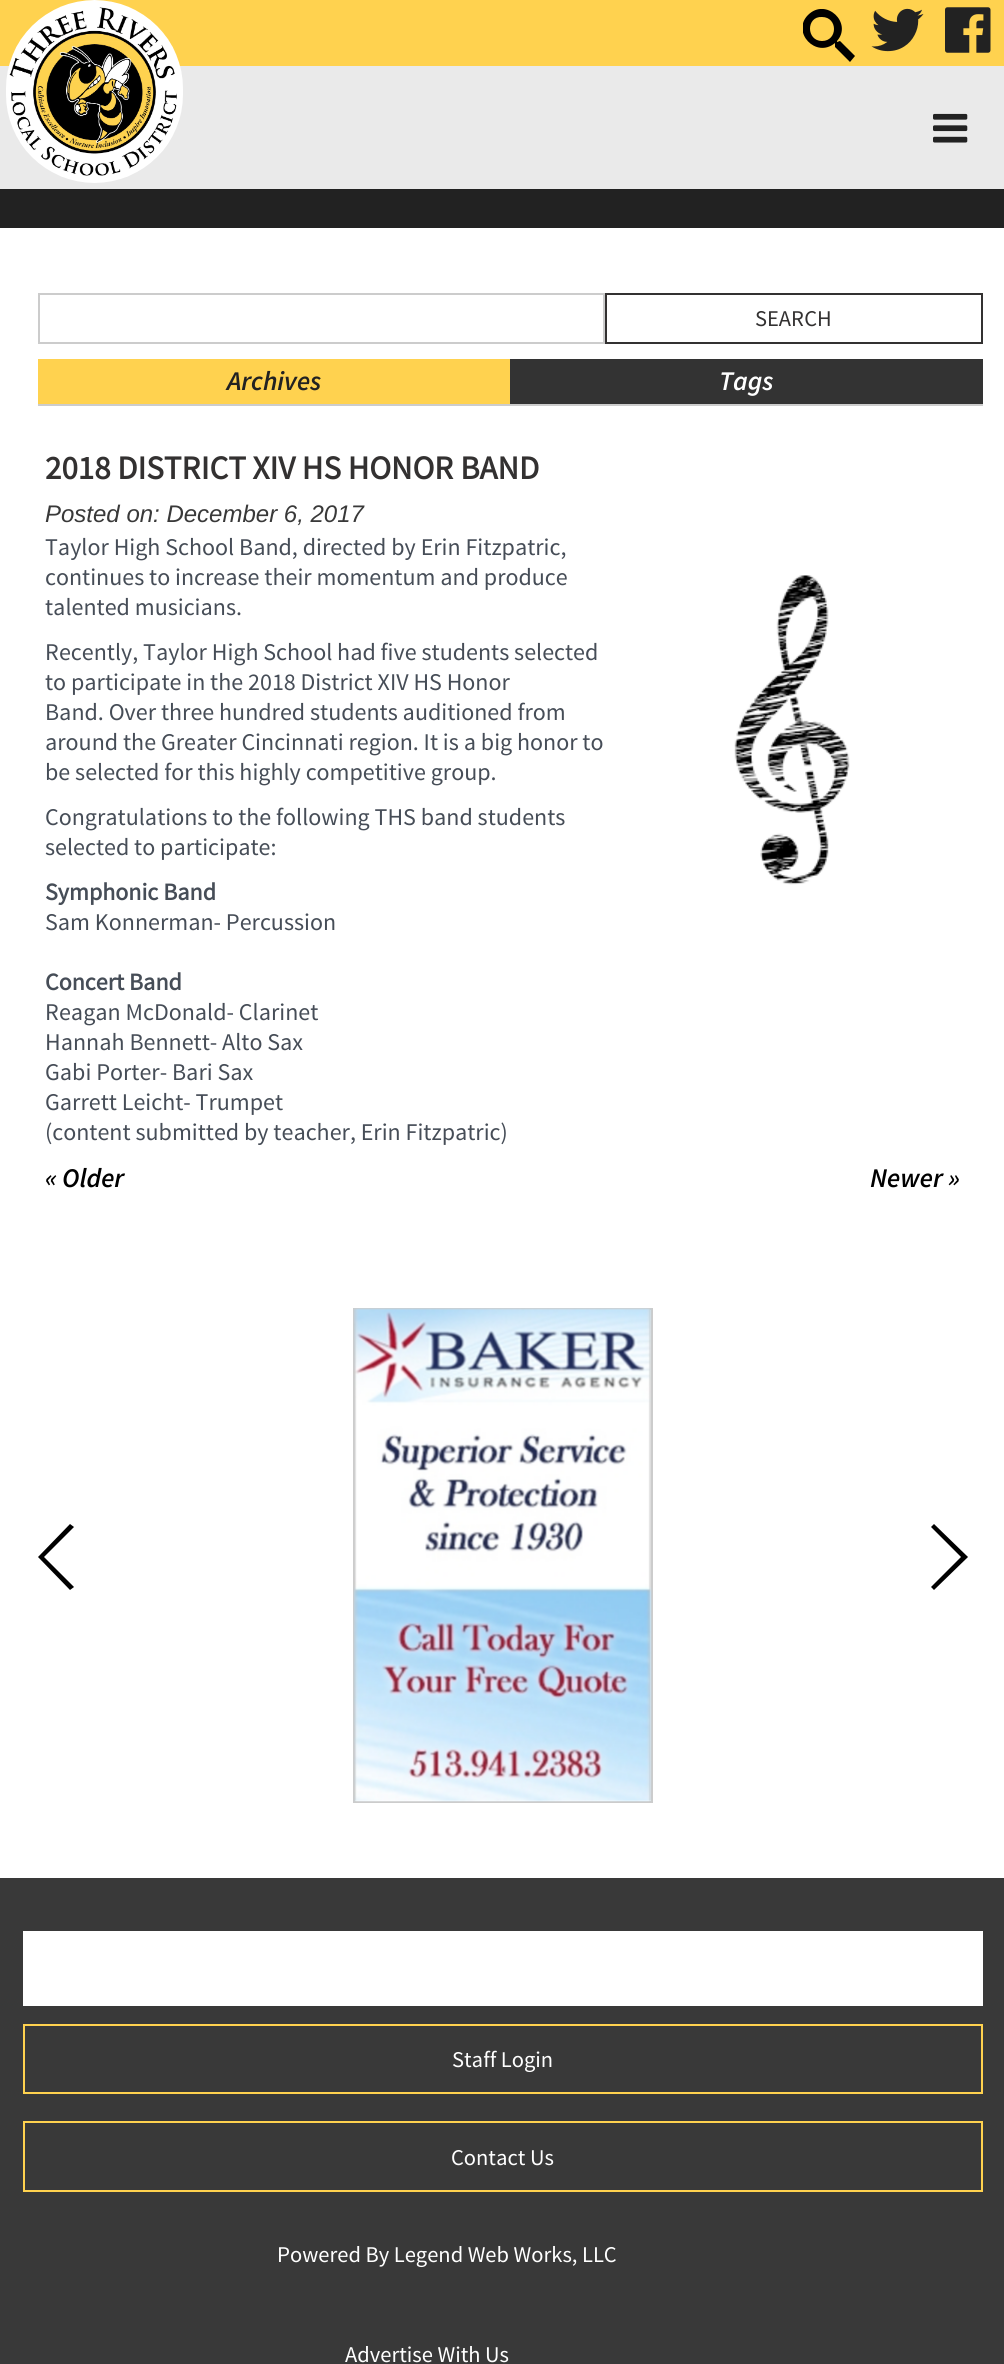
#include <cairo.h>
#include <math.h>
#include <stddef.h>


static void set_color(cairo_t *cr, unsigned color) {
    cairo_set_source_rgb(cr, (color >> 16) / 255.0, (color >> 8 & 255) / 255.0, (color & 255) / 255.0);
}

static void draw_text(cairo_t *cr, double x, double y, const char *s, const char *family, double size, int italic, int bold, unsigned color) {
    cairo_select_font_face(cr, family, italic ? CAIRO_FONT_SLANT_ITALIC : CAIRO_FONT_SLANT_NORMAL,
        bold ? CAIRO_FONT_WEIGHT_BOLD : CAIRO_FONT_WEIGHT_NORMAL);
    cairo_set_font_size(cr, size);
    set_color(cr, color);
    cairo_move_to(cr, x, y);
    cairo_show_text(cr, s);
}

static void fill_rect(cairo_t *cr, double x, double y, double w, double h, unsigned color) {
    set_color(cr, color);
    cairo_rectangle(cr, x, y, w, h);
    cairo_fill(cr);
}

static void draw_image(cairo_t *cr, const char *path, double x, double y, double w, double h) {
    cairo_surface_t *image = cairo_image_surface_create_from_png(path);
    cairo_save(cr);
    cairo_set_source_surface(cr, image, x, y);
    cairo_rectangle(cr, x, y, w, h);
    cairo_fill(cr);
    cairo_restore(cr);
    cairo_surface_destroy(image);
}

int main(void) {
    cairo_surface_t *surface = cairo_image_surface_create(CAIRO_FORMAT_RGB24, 1004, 2364);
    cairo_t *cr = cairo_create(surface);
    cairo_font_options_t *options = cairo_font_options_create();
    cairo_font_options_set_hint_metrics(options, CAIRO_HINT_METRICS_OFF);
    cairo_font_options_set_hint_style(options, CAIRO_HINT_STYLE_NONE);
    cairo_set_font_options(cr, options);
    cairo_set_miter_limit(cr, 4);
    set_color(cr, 0xFFFFFF);
    cairo_paint(cr);
    fill_rect(cr, 0, 0, 1004, 66, 0xFFD24F);
    cairo_save(cr);
    cairo_rectangle(cr, 803, 9, 52, 53);
    cairo_clip(cr);
    set_color(cr, 0x000000);
    cairo_new_path(cr);
    cairo_move_to(cr, 822, 41);
    cairo_curve_to(cr, 838, 41, 838, 17, 822, 17);
    cairo_curve_to(cr, 806, 16, 806, 41, 822, 41);
    cairo_close_path(cr);
    cairo_move_to(cr, 840, 41);
    cairo_line_to(cr, 855, 56);
    cairo_line_to(cr, 850, 62);
    cairo_line_to(cr, 835, 47);
    cairo_line_to(cr, 835, 43);
    cairo_curve_to(cr, 816, 59, 791, 32, 808, 15);
    cairo_curve_to(cr, 826, -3, 853, 23, 837, 41);
    cairo_line_to(cr, 837, 42);
    cairo_close_path(cr);
    cairo_fill(cr);
    cairo_restore(cr);
    draw_image(cr, "assets/img1.png", 871, 8, 53, 44);
    draw_image(cr, "assets/img2.png", 945, 7, 46, 46);
    fill_rect(cr, 0, 66, 1004, 123, 0xEAEAEA);
    draw_image(cr, "assets/img3.png", 6, 0, 177, 183);
    draw_image(cr, "assets/img4.png", 933, 113, 35, 30);
    fill_rect(cr, 0, 189, 1004, 39, 0x222222);
    cairo_rectangle(cr, 39, 294, 565, 49);
    set_color(cr, 0xCCCCCC);
    cairo_stroke(cr);
    cairo_rectangle(cr, 606, 294, 376, 49);
    set_color(cr, 0x333131);
    cairo_stroke(cr);
    draw_text(cr, 755, 326, "SEARCH", "Source Sans Pro", 22.5, 0, 0, 0x333131);
    fill_rect(cr, 38, 359, 472, 45, 0xFFD24F);
    draw_text(cr, 227, 390, "Archives", "Source Sans Pro SemiBold", 27, 1, 0, 0x222222);
    fill_rect(cr, 510, 359, 473, 45, 0x333333);
    draw_text(cr, 719, 390, "Tags", "Source Sans Pro SemiBold", 27, 1, 0, 0xFFFFFF);
    fill_rect(cr, 38, 404, 945, 2, 0xCCCCCC);
    draw_text(cr, 45, 479, "2018 DISTRICT XIV HS HONOR BAND", "Source Sans Pro", 33, 0, 1, 0x333131);
    draw_text(cr, 45, 522, "Posted on: December 6, 2017", "Liberation Sans", 24, 1, 0, 0x393939);
    draw_text(cr, 45, 555, "Taylor High School Band, directed by Erin Fitzpatric,", "Source Sans Pro", 24, 0, 0, 0x464D57);
    draw_text(cr, 45, 585, "continues to increase their momentum and produce", "Source Sans Pro", 24, 0, 0, 0x464D57);
    draw_text(cr, 45, 615, "talented musicians.", "Source Sans Pro", 24, 0, 0, 0x464D57);
    draw_image(cr, "assets/img5.png", 734, 575, 116, 310);
    draw_text(cr, 45, 660, "Recently, Taylor High School had five students selected", "Source Sans Pro", 24, 0, 0, 0x464D57);
    draw_text(cr, 45, 690, "to participate in the 2018 District XIV HS Honor", "Source Sans Pro", 24, 0, 0, 0x464D57);
    draw_text(cr, 45, 720, "Band. Over three hundred students auditioned from", "Source Sans Pro", 24, 0, 0, 0x464D57);
    draw_text(cr, 45, 750, "around the Greater Cincinnati region. It is a big honor to", "Source Sans Pro", 24, 0, 0, 0x464D57);
    draw_text(cr, 45, 780, "be selected for this highly competitive group.", "Source Sans Pro", 24, 0, 0, 0x464D57);
    draw_text(cr, 45, 825, "Congratulations to the following THS band students", "Source Sans Pro", 24, 0, 0, 0x464D57);
    draw_text(cr, 45, 855, "selected to participate:", "Source Sans Pro", 24, 0, 0, 0x464D57);
    draw_text(cr, 45, 900, "Symphonic Band", "Source Sans Pro", 24, 0, 1, 0x464D57);
    draw_text(cr, 45, 930, "Sam Konnerman- Percussion", "Source Sans Pro", 24, 0, 0, 0x464D57);
    draw_text(cr, 45, 990, "Concert Band", "Source Sans Pro", 24, 0, 1, 0x464D57);
    draw_text(cr, 45, 1020, "Reagan McDonald- Clarinet", "Source Sans Pro", 24, 0, 0, 0x464D57);
    draw_text(cr, 45, 1050, "Hannah Bennett- Alto Sax", "Source Sans Pro", 24, 0, 0, 0x464D57);
    draw_text(cr, 45, 1080, "Gabi Porter- Bari Sax", "Source Sans Pro", 24, 0, 0, 0x464D57);
    draw_text(cr, 45, 1110, "Garrett Leicht- Trumpet", "Source Sans Pro", 24, 0, 0, 0x464D57);
    draw_text(cr, 45, 1140, "(content submitted by teacher, Erin Fitzpatric)", "Source Sans Pro", 24, 0, 0, 0x464D57);
    draw_text(cr, 45, 1187, "« Older", "Source Sans Pro SemiBold", 27, 1, 0, 0x000000);
    draw_text(cr, 870, 1187, "Newer »", "Source Sans Pro SemiBold", 27, 1, 0, 0x000000);
    cairo_rectangle(cr, 354, 1309, 298, 493);
    set_color(cr, 0xCCCCCC);
    cairo_stroke(cr);
    draw_image(cr, "assets/img6.png", 353, 1308, 299, 494);
    set_color(cr, 0x000000);
    cairo_new_path(cr);
    cairo_move_to(cr, 38, 1557);
    cairo_line_to(cr, 70, 1524);
    cairo_line_to(cr, 74, 1527);
    cairo_line_to(cr, 44, 1557);
    cairo_line_to(cr, 74, 1587);
    cairo_line_to(cr, 70, 1590);
    cairo_close_path(cr);
    cairo_fill(cr);
    cairo_new_path(cr);
    cairo_move_to(cr, 968, 1557);
    cairo_line_to(cr, 934, 1590);
    cairo_line_to(cr, 931, 1587);
    cairo_line_to(cr, 961, 1557);
    cairo_line_to(cr, 931, 1527);
    cairo_line_to(cr, 934, 1524);
    cairo_close_path(cr);
    cairo_fill(cr);
    fill_rect(cr, 0, 1878, 1004, 486, 0x393939);
    fill_rect(cr, 23, 1931, 960, 75, 0xFFFFFF);
    cairo_rectangle(cr, 24, 2025, 958, 68);
    set_color(cr, 0xFFD24F);
    cairo_stroke(cr);
    draw_text(cr, 452, 2067, "Staff Login", "Source Sans Pro", 22.5, 0, 0, 0xFFFFFF);
    cairo_rectangle(cr, 24, 2122, 958, 69);
    set_color(cr, 0xFFD24F);
    cairo_stroke(cr);
    draw_text(cr, 451, 2165, "Contact Us", "Source Sans Pro", 22.5, 0, 0, 0xFFFFFF);
    draw_text(cr, 277, 2262, "Powered By Legend Web Works, LLC", "Source Sans Pro", 22.5, 0, 0, 0xFFFFFF);
    draw_text(cr, 345, 2362, "Advertise With Us", "Source Sans Pro", 22.5, 0, 0, 0xFFFFFF);
    cairo_surface_write_to_png(surface, "output.png");
    cairo_font_options_destroy(options);
    cairo_destroy(cr);
    cairo_surface_destroy(surface);
    return 0;
}
